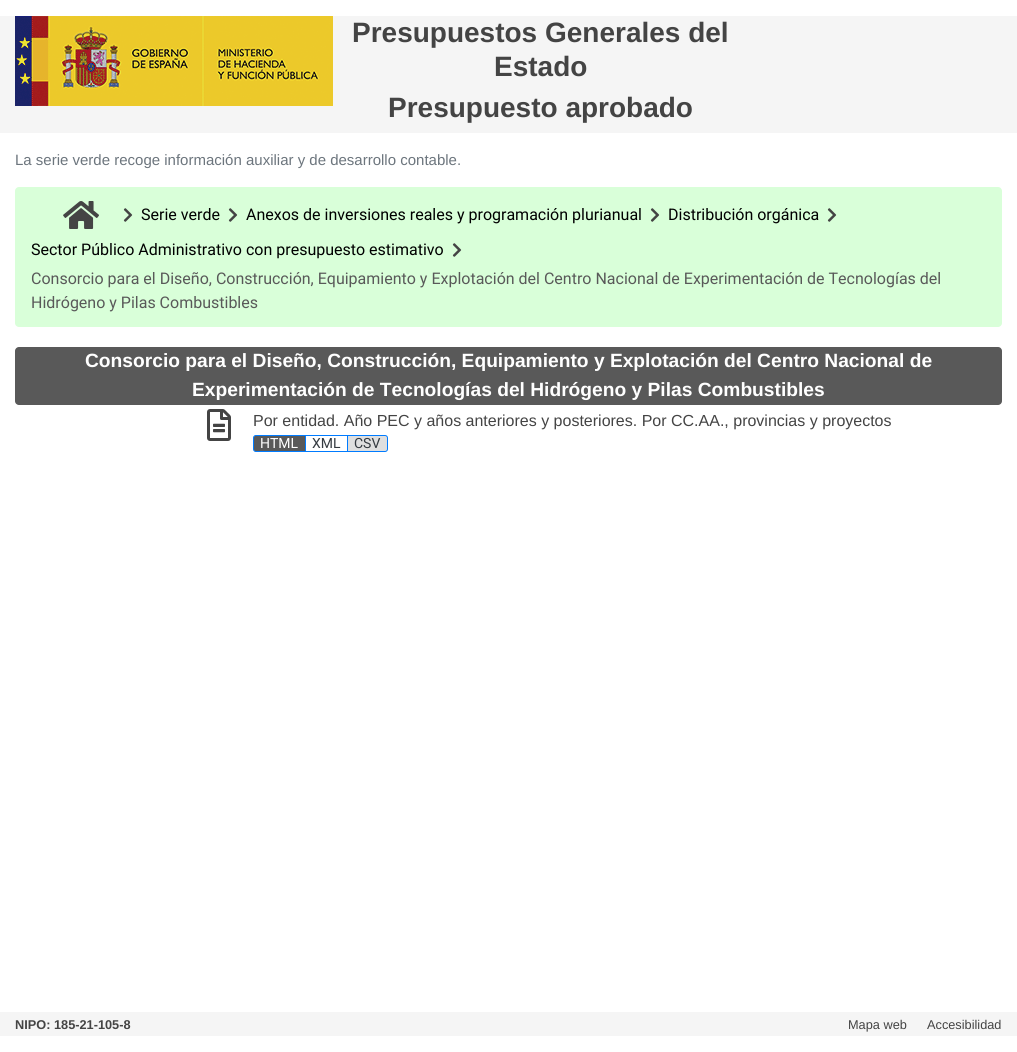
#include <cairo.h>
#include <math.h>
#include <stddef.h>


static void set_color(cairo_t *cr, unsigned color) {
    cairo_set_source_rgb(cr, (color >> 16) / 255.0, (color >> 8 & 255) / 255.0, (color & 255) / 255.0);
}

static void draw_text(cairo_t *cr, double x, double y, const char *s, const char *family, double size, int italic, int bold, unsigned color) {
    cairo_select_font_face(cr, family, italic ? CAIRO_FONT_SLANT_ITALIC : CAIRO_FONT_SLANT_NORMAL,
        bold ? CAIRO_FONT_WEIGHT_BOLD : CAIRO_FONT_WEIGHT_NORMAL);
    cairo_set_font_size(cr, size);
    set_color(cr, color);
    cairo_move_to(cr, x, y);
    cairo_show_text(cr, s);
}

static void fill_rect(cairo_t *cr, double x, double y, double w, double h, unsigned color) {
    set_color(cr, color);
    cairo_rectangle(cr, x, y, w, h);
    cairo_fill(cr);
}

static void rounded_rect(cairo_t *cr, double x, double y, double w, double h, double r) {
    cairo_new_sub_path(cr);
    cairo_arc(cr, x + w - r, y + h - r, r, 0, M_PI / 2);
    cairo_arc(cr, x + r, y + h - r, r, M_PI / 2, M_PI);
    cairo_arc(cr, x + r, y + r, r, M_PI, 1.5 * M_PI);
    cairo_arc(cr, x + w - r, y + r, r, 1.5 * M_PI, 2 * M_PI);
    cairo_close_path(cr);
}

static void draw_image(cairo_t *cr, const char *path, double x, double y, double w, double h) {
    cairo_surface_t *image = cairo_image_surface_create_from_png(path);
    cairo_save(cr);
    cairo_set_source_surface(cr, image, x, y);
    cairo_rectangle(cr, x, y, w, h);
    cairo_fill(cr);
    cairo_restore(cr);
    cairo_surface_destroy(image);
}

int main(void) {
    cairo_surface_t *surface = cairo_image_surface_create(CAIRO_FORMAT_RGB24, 1017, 1052);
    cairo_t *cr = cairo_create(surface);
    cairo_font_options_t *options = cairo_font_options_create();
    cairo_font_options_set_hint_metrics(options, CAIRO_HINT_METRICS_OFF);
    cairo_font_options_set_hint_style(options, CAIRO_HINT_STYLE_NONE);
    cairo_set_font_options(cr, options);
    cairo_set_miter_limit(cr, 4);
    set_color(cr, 0xFFFFFF);
    cairo_paint(cr);
    fill_rect(cr, 0, 16, 1017, 117, 0xF5F5F5);
    draw_image(cr, "assets/img1.png", 15, 16, 318, 90);
    draw_text(cr, 352, 42, "Presupuestos Generales del", "Liberation Sans", 28, 0, 1, 0x444444);
    draw_text(cr, 494, 76, "Estado", "Liberation Sans", 28, 0, 1, 0x444444);
    draw_text(cr, 388, 117, "Presupuesto aprobado", "Liberation Sans", 28, 0, 1, 0x444444);
    draw_text(cr, 15, 165, "La serie verde recoge información auxiliar y de desarrollo contable.", "Liberation Sans", 15, 0, 0, 0x6C757D);
    set_color(cr, 0xD9FFD9);
    rounded_rect(cr, 15, 187, 987, 140, 4);
    cairo_fill(cr);
    draw_image(cr, "assets/img2.png", 63, 201, 36, 28);
    draw_image(cr, "assets/img3.png", 123, 208, 10, 14);
    draw_text(cr, 141, 220, "Serie verde", "Roboto", 16, 0, 0, 0x000000);
    draw_image(cr, "assets/img3.png", 228, 208, 10, 14);
    draw_text(cr, 246, 220, "Anexos de inversiones reales y programación plurianual", "Roboto", 16, 0, 0, 0x000000);
    draw_image(cr, "assets/img3.png", 650, 208, 10, 14);
    draw_text(cr, 668, 220, "Distribución orgánica", "Roboto", 16, 0, 0, 0x000000);
    draw_image(cr, "assets/img3.png", 827, 208, 10, 14);
    draw_text(cr, 31, 255, "Sector Público Administrativo con presupuesto estimativo", "Roboto", 16, 0, 0, 0x000000);
    draw_image(cr, "assets/img3.png", 452, 243, 10, 14);
    draw_text(cr, 31, 284, "Consorcio para el Diseño, Construcción, Equipamiento y Explotación del Centro Nacional de Experimentación de Tecnologías del", "Roboto", 16, 0, 0, 0x595959);
    draw_text(cr, 31, 308, "Hidrógeno y Pilas Combustibles", "Roboto", 16, 0, 0, 0x595959);
    rounded_rect(cr, 15, 347, 987, 58, 4);
    cairo_fill(cr);
    draw_text(cr, 85, 367, "Consorcio para el Diseño, Construcción, Equipamiento y Explotación del Centro Nacional de", "Liberation Sans", 19.2, 0, 1, 0xFFFFFF);
    draw_text(cr, 192, 396, "Experimentación de Tecnologías del Hidrógeno y Pilas Combustibles", "Liberation Sans", 19.2, 0, 1, 0xFFFFFF);
    draw_image(cr, "assets/img4.png", 207, 409, 24, 32);
    draw_text(cr, 253, 426, "Por entidad. Año PEC y años anteriores y posteriores. Por CC.AA., provincias y proyectos", "Liberation Sans", 16, 0, 0, 0x444444);
    set_color(cr, 0x595959);
    cairo_new_path(cr);
    cairo_move_to(cr, 256, 435.5);
    cairo_line_to(cr, 305.5, 435.5);
    cairo_line_to(cr, 305.5, 451.5);
    cairo_line_to(cr, 256, 451.5);
    cairo_curve_to(cr, 254.5, 451.5, 253.5, 450.5, 253.5, 449);
    cairo_line_to(cr, 253.5, 438);
    cairo_curve_to(cr, 253.5, 436.5, 254.5, 435.5, 256, 435.5);
    cairo_close_path(cr);
    cairo_fill_preserve(cr);
    set_color(cr, 0x007BFF);
    cairo_set_line_width(cr, 1);
    cairo_stroke(cr);
    draw_text(cr, 260, 448, "HTML", "Roboto", 14, 0, 0, 0xFFFFFF);
    cairo_rectangle(cr, 305.5, 435.5, 42, 16);
    set_color(cr, 0x007BFF);
    cairo_stroke(cr);
    draw_text(cr, 312, 448, "XML", "Roboto", 14, 0, 0, 0x343A40);
    set_color(cr, 0xDFDFDF);
    cairo_new_path(cr);
    cairo_move_to(cr, 347.5, 435.5);
    cairo_line_to(cr, 385, 435.5);
    cairo_curve_to(cr, 386.5, 435.5, 387.5, 436.5, 387.5, 438);
    cairo_line_to(cr, 387.5, 449);
    cairo_curve_to(cr, 387.5, 450.5, 386.5, 451.5, 385, 451.5);
    cairo_line_to(cr, 347.5, 451.5);
    cairo_close_path(cr);
    cairo_fill_preserve(cr);
    set_color(cr, 0x007BFF);
    cairo_stroke(cr);
    draw_text(cr, 354, 448, "CSV", "Roboto", 14, 0, 0, 0x343A40);
    fill_rect(cr, 0, 1012, 1017, 24, 0xF5F5F5);
    draw_text(cr, 15, 1029, "NIPO: 185-21-105-8", "Liberation Sans", 12.75, 0, 1, 0x444444);
    draw_text(cr, 848, 1029, "Mapa web", "Liberation Sans", 12.75, 0, 0, 0x444444);
    draw_text(cr, 927, 1029, "Accesibilidad", "Liberation Sans", 12.75, 0, 0, 0x444444);
    cairo_surface_write_to_png(surface, "output.png");
    cairo_font_options_destroy(options);
    cairo_destroy(cr);
    cairo_surface_destroy(surface);
    return 0;
}
